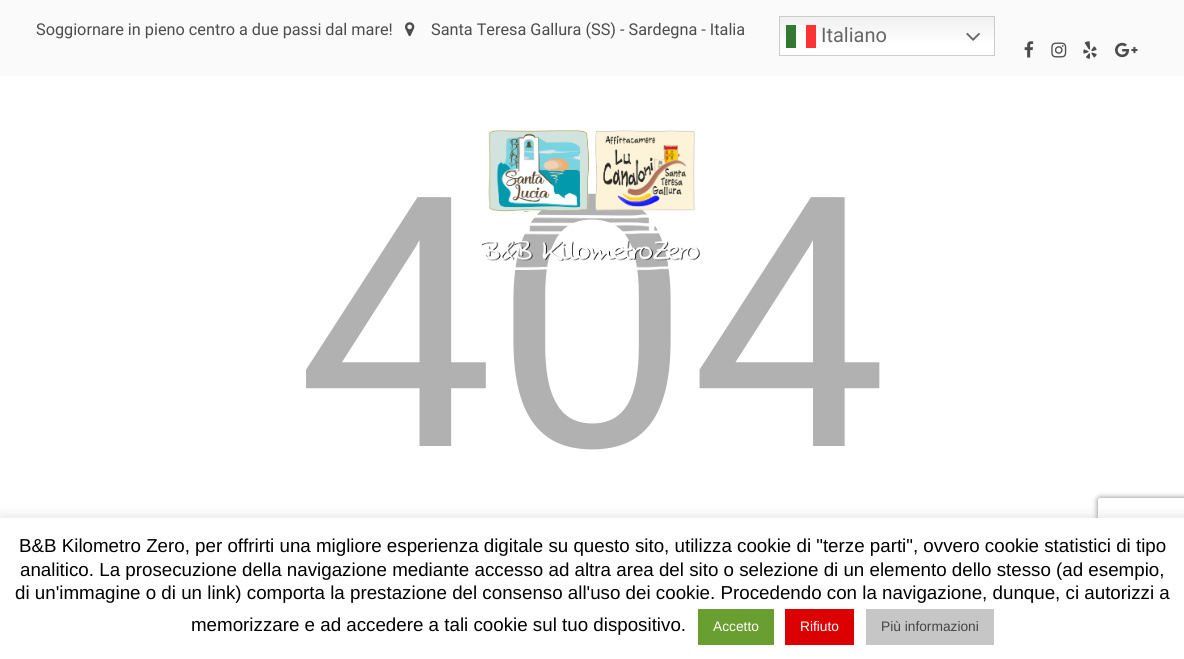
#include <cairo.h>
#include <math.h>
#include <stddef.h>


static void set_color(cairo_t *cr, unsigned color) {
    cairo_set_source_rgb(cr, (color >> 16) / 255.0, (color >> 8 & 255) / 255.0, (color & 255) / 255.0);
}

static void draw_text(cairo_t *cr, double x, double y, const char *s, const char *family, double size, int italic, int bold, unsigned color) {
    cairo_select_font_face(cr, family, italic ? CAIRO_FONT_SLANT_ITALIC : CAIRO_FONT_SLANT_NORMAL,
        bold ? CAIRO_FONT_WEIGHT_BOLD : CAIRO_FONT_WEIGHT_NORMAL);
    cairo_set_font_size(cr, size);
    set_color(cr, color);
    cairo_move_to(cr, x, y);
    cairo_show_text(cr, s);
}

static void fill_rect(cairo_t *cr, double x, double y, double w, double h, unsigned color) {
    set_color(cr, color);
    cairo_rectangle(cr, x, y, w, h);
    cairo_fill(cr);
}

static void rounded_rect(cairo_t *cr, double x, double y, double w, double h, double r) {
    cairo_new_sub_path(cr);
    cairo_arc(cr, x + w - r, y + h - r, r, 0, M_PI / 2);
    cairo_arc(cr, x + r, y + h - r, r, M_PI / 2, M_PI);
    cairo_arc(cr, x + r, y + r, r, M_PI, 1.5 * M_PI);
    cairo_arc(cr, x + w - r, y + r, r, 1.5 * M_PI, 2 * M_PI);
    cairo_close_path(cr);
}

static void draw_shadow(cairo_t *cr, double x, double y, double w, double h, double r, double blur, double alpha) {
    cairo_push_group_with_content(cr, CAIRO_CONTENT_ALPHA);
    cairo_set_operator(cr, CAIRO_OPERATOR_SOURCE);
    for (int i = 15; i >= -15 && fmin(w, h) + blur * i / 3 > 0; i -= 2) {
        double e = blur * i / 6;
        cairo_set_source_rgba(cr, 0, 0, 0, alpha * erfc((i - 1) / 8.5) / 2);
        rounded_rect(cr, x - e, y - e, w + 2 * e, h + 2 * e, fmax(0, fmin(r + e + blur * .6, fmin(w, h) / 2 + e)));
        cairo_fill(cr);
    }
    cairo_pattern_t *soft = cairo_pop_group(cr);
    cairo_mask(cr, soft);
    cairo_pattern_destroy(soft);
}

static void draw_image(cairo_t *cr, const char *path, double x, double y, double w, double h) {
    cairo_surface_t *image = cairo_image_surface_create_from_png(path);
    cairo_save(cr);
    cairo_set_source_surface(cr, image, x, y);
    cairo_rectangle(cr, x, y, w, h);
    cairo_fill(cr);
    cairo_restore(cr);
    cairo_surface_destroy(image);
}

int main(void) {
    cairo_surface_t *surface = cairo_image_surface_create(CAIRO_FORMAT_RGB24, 1184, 659);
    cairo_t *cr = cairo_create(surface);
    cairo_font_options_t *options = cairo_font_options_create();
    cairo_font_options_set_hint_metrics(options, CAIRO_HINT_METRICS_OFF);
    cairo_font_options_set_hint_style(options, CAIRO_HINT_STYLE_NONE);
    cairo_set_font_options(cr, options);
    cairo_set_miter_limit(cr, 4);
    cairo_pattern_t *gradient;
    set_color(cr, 0xFFFFFF);
    cairo_paint(cr);
    fill_rect(cr, 0, 0, 1184, 76, 0xFAFAFA);
    draw_text(cr, 36, 35, "Soggiornare in pieno centro a due passi dal mare!", "Roboto", 16.25, 0, 0, 0x4C4C4C);
    draw_image(cr, "assets/img1.png", 405, 22, 10, 15);
    draw_text(cr, 431, 35, "Santa Teresa Gallura (SS) - Sardegna - Italia", "Roboto", 16.25, 0, 0, 0x4C4C4C);
    gradient = cairo_pattern_create_linear(887, 16, 887, 56);
    cairo_pattern_add_color_stop_rgba(gradient, 0, 0.937, 0.937, 0.937, 1);
    cairo_pattern_add_color_stop_rgba(gradient, 0.7, 1, 1, 1, 1);
    cairo_set_source(cr, gradient);
    cairo_pattern_destroy(gradient);
    cairo_rectangle(cr, 780, 17, 214, 38);
    cairo_fill(cr);
    gradient = cairo_pattern_create_linear(887, 16, 887, 56);
    cairo_pattern_add_color_stop_rgba(gradient, 0, 0.988, 0.988, 0.988, 1);
    cairo_pattern_add_color_stop_rgba(gradient, 0.7, 1, 1, 1, 1);
    cairo_set_source(cr, gradient);
    cairo_pattern_destroy(gradient);
    cairo_rectangle(cr, 796, 25, 10, 15);
    cairo_fill(cr);
    cairo_rectangle(cr, 779.5, 16.5, 215, 39);
    set_color(cr, 0xCCCCCC);
    cairo_set_line_width(cr, 1);
    cairo_stroke(cr);
    fill_rect(cr, 786, 25, 10, 23, 0x337833);
    fill_rect(cr, 806, 25, 10, 23, 0xFC3333);
    draw_text(cr, 821, 42, "Italiano", "Roboto", 20, 0, 0, 0x666666);
    draw_image(cr, "assets/img2.png", 966, 32, 14, 9);
    draw_image(cr, "assets/img3.png", 1024, 41, 10, 17);
    draw_image(cr, "assets/img4.png", 1051, 42, 16, 16);
    draw_image(cr, "assets/img5.png", 1083, 41, 14, 18);
    draw_image(cr, "assets/img6.png", 1115, 42, 23, 16);
    draw_text(cr, 297, 446, "404", "Roboto", 350, 0, 0, 0xB2B1B1);
    draw_image(cr, "assets/img7.png", 481, 130, 219, 140);
    cairo_save(cr);
    cairo_set_fill_rule(cr, CAIRO_FILL_RULE_EVEN_ODD);
    cairo_new_path(cr);
    cairo_move_to(cr, 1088, 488);
    cairo_line_to(cr, 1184, 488);
    cairo_line_to(cr, 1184, 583);
    cairo_line_to(cr, 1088, 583);
    cairo_close_path(cr);
    cairo_move_to(cr, 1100.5, 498);
    cairo_line_to(cr, 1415.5, 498);
    cairo_curve_to(cr, 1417, 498, 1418, 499, 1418, 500.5);
    cairo_line_to(cr, 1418, 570.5);
    cairo_curve_to(cr, 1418, 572, 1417, 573, 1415.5, 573);
    cairo_line_to(cr, 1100.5, 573);
    cairo_curve_to(cr, 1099, 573, 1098, 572, 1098, 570.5);
    cairo_line_to(cr, 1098, 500.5);
    cairo_curve_to(cr, 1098, 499, 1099, 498, 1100.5, 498);
    cairo_close_path(cr);
    cairo_clip(cr);
    set_color(cr, 0x808080);
    draw_shadow(cr, 1098, 498, 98, 75, 2.5, 3, 1);
    cairo_restore(cr);
    set_color(cr, 0xACABAB);
    draw_shadow(cr, 0, 516, 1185, 143, 0, 6, 0.3);
    fill_rect(cr, 0, 518, 1184, 141, 0xFFFFFF);
    draw_text(cr, 19, 552, "B&B Kilometro Zero, per offrirti una migliore esperienza digitale su questo sito, utilizza cookie di \"terze parti\", ovvero cookie statistici di tipo", "Liberation Sans", 18.75, 0, 0, 0x000000);
    draw_text(cr, 20, 576, "analitico. La prosecuzione della navigazione mediante accesso ad altra area del sito o selezione di un elemento dello stesso (ad esempio,", "Liberation Sans", 18.75, 0, 0, 0x000000);
    draw_text(cr, 15, 599, "di un'immagine o di un link) comporta la prestazione del consenso all'uso dei cookie. Procedendo con la navigazione, dunque, ci autorizzi a", "Liberation Sans", 18.75, 0, 0, 0x000000);
    draw_text(cr, 191, 631, "memorizzare e ad accedere a tali cookie sul tuo dispositivo.", "Liberation Sans", 18.75, 0, 0, 0x000000);
    fill_rect(cr, 698, 609, 76, 36, 0x699E31);
    draw_text(cr, 713, 631, "Accetto", "Liberation Sans", 13.75, 0, 0, 0xFFFFFF);
    fill_rect(cr, 785, 609, 69, 36, 0xDD0000);
    draw_text(cr, 800, 631, "Rifiuto", "Liberation Sans", 13.75, 0, 0, 0xFFFFFF);
    fill_rect(cr, 866, 609, 128, 36, 0xC6C6C6);
    draw_text(cr, 881, 631, "Più informazioni", "Liberation Sans", 13.75, 0, 0, 0x444444);
    cairo_surface_write_to_png(surface, "output.png");
    cairo_font_options_destroy(options);
    cairo_destroy(cr);
    cairo_surface_destroy(surface);
    return 0;
}
